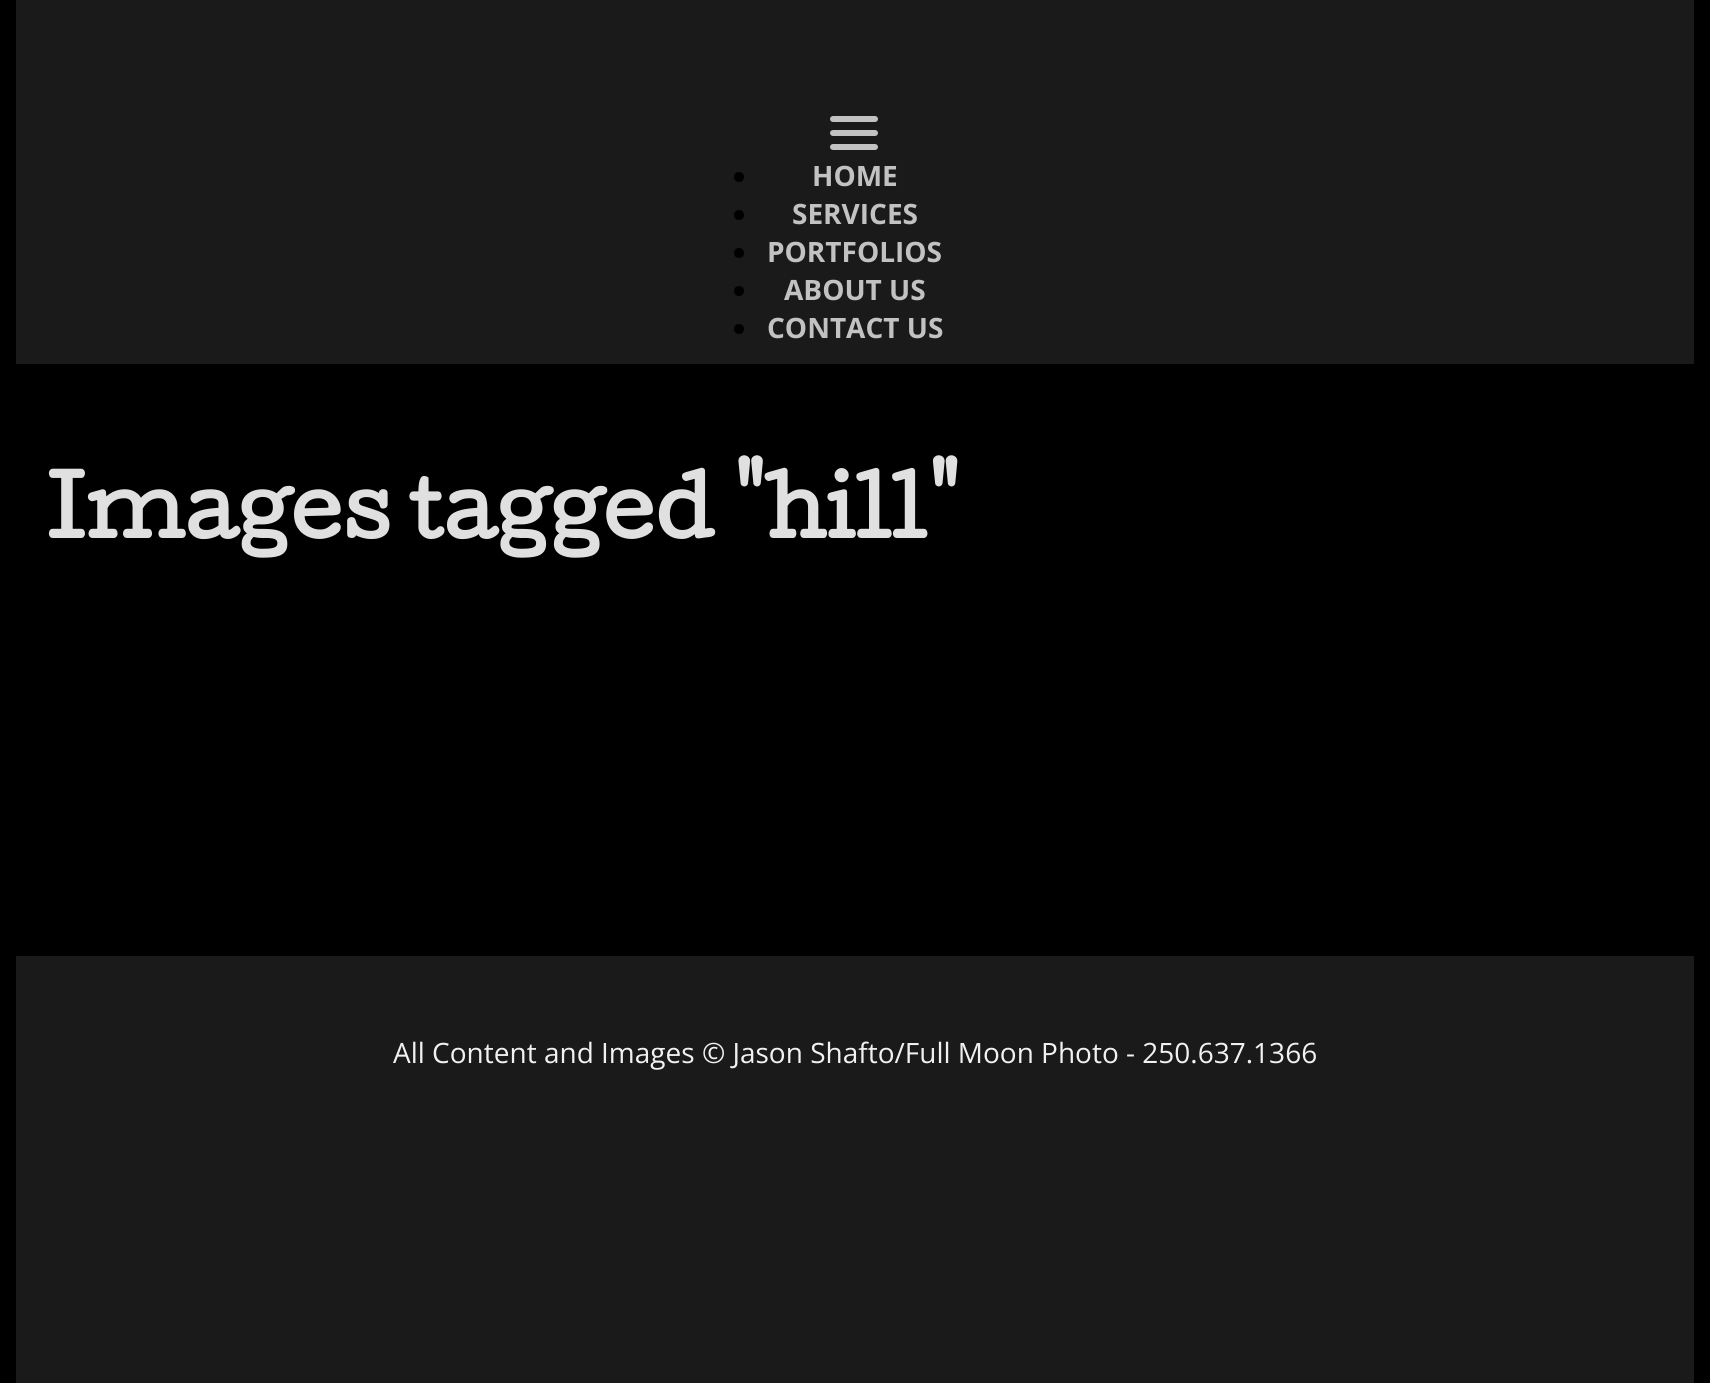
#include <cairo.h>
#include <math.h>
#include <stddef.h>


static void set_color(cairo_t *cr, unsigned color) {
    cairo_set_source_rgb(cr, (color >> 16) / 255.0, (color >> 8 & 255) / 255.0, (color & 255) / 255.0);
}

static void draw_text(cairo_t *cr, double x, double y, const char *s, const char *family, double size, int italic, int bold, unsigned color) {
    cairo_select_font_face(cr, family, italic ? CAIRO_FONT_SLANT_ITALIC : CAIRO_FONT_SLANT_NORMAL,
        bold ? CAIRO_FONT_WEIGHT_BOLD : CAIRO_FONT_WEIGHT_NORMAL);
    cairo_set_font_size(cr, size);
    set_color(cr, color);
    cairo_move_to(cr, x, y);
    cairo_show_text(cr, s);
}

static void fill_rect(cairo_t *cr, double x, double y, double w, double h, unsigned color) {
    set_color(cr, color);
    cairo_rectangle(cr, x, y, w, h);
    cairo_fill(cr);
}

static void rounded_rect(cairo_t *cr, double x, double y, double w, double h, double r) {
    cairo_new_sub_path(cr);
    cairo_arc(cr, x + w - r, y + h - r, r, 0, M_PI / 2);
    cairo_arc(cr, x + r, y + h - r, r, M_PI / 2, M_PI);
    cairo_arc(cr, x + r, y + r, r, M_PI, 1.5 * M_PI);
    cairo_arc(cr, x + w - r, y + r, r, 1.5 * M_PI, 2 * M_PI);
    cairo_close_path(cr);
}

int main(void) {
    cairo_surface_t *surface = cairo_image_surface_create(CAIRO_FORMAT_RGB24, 1710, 1383);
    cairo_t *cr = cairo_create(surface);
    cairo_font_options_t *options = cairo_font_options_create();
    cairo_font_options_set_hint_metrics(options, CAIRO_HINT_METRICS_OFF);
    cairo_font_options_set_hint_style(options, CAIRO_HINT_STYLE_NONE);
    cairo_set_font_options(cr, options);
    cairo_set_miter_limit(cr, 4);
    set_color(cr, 0x000000);
    cairo_paint(cr);
    fill_rect(cr, 16, 0, 1678, 364, 0x1A1A1A);
    set_color(cr, 0xC2C2C2);
    rounded_rect(cr, 830, 116, 48, 6, 3);
    cairo_fill(cr);
    rounded_rect(cr, 830, 130, 48, 6, 3);
    cairo_fill(cr);
    rounded_rect(cr, 830, 144, 48, 6, 3);
    cairo_fill(cr);
    set_color(cr, 0x000000);
    cairo_arc(cr, 739, 177, 5, 0, 2 * M_PI);
    cairo_fill(cr);
    draw_text(cr, 812, 186, "HOME", "Open Sans", 28, 0, 1, 0xC2C2C2);
    set_color(cr, 0x000000);
    cairo_new_path(cr);
    cairo_arc(cr, 739, 215, 5, 0, 2 * M_PI);
    cairo_fill(cr);
    draw_text(cr, 792, 224, "SERVICES", "Open Sans", 28, 0, 1, 0xC2C2C2);
    set_color(cr, 0x000000);
    cairo_new_path(cr);
    cairo_arc(cr, 739, 253, 5, 0, 2 * M_PI);
    cairo_fill(cr);
    draw_text(cr, 767, 262, "PORTFOLIOS", "Open Sans", 28, 0, 1, 0xC2C2C2);
    set_color(cr, 0x000000);
    cairo_new_path(cr);
    cairo_arc(cr, 739, 291, 5, 0, 2 * M_PI);
    cairo_fill(cr);
    draw_text(cr, 784, 300, "ABOUT US", "Open Sans", 28, 0, 1, 0xC2C2C2);
    set_color(cr, 0x000000);
    cairo_new_path(cr);
    cairo_arc(cr, 739, 329, 5, 0, 2 * M_PI);
    cairo_fill(cr);
    draw_text(cr, 767, 338, "CONTACT US", "Open Sans", 28, 0, 1, 0xC2C2C2);
    draw_text(cr, 46, 538, "Images tagged \"hill\"", "Cutive", 80, 0, 1, 0xE0E0E0);
    fill_rect(cr, 16, 956, 1678, 427, 0x1A1A1A);
    draw_text(cr, 393, 1063, "All Content and Images © Jason Shafto/Full Moon Photo - 250.637.1366", "Open Sans", 28, 0, 0, 0xF1F1F1);
    cairo_surface_write_to_png(surface, "output.png");
    cairo_font_options_destroy(options);
    cairo_destroy(cr);
    cairo_surface_destroy(surface);
    return 0;
}
